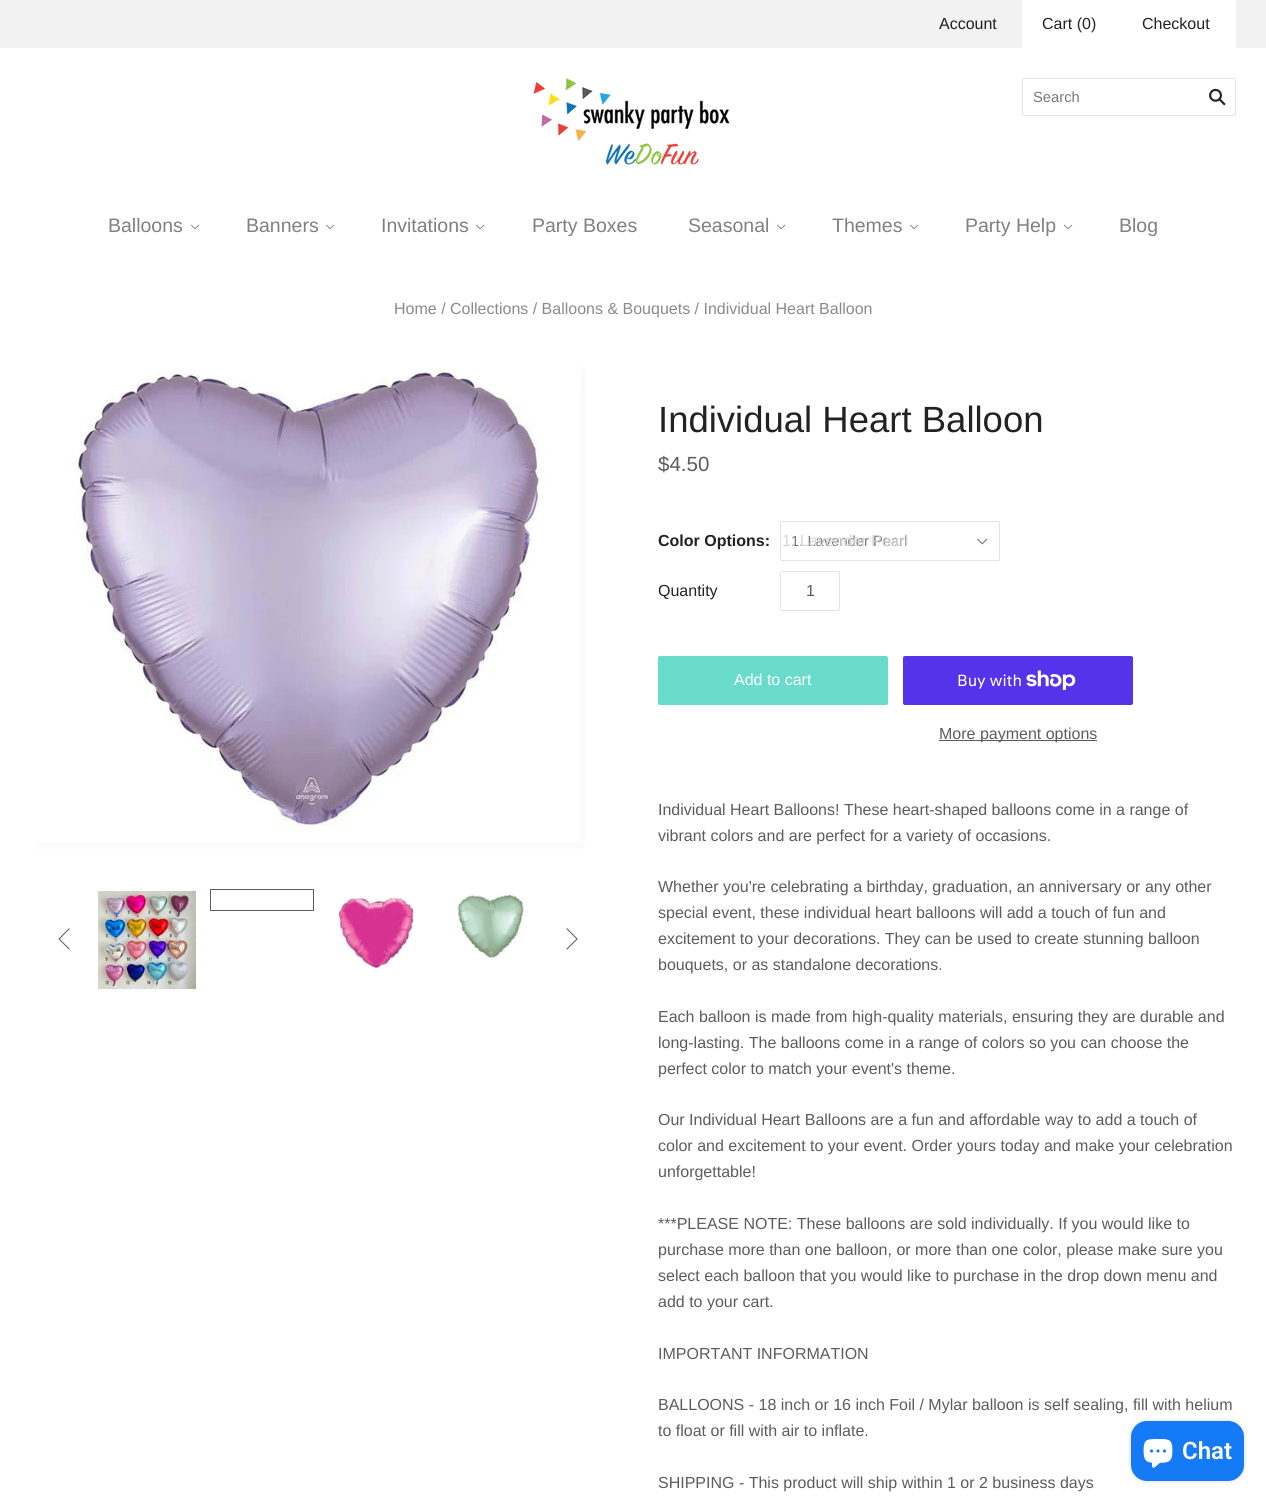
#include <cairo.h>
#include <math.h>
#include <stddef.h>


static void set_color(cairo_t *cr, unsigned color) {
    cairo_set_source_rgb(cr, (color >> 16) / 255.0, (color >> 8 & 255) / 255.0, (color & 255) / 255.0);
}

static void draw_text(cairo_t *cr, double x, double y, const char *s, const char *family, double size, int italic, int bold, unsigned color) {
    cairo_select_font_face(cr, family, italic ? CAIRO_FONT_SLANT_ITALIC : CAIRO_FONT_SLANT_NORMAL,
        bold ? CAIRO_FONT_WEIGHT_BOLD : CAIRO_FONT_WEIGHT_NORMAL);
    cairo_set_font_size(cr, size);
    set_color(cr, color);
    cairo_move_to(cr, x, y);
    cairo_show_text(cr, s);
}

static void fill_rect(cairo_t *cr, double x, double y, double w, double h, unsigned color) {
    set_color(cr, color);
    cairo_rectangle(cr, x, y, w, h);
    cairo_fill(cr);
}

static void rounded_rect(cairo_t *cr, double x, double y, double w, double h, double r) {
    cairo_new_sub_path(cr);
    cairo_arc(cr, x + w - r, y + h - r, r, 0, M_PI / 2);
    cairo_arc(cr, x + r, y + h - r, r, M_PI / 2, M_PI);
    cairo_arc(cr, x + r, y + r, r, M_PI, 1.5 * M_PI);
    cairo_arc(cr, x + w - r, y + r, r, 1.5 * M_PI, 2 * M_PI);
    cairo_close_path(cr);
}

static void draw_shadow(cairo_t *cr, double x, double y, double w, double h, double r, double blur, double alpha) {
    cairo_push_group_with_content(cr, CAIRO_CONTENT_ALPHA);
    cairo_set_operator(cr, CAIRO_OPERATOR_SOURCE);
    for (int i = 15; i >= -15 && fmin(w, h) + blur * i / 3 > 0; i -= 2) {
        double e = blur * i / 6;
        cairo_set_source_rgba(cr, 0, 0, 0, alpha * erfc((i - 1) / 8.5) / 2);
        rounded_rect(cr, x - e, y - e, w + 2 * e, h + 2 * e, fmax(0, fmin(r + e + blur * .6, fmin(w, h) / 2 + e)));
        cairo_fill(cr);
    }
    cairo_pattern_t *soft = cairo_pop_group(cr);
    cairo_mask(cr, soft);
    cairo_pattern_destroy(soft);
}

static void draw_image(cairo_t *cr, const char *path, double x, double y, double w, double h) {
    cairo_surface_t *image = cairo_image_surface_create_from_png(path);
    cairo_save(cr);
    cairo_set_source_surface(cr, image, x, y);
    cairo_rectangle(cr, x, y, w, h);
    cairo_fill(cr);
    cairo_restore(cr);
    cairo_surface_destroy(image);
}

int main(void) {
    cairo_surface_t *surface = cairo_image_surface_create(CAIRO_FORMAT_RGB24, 1266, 1502);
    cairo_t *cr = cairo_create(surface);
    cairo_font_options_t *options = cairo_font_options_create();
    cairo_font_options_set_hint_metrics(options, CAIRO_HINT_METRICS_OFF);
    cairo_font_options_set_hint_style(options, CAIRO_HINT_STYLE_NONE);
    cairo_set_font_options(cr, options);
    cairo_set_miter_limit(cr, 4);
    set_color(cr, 0xFFFFFF);
    cairo_paint(cr);
    fill_rect(cr, 0, 0, 1266, 48, 0xF2F2F2);
    draw_text(cr, 939, 29, "Account", "Liberation Sans", 16, 0, 0, 0x222222);
    fill_rect(cr, 1022, 0, 214, 48, 0xFFFFFF);
    draw_text(cr, 1042, 29, "Cart (0)", "Liberation Sans", 16, 0, 0, 0x222222);
    draw_text(cr, 1142, 29, "Checkout", "Liberation Sans", 16, 0, 0, 0x222222);
    draw_image(cr, "assets/img1.png", 533, 78, 197, 87);
    rounded_rect(cr, 1022.5, 78.5, 213, 37, 1.5);
    set_color(cr, 0xE4E4E4);
    cairo_set_line_width(cr, 1);
    cairo_stroke(cr);
    draw_text(cr, 1033, 102, "Search", "Liberation Sans", 14.75, 0, 0, 0x787878);
    draw_image(cr, "assets/img2.png", 1209, 88, 17, 18);
    draw_text(cr, 108, 232, "Balloons", "Liberation Sans", 19.5, 0, 0, 0x808080);
    draw_image(cr, "assets/img3.png", 191, 224, 9, 6);
    draw_text(cr, 246, 232, "Banners", "Liberation Sans", 19.5, 0, 0, 0x808080);
    draw_image(cr, "assets/img3.png", 326, 224, 9, 6);
    draw_text(cr, 381, 232, "Invitations", "Liberation Sans", 19.5, 0, 0, 0x808080);
    draw_image(cr, "assets/img3.png", 476, 224, 9, 6);
    draw_text(cr, 532, 232, "Party Boxes", "Liberation Sans", 19.5, 0, 0, 0x808080);
    draw_text(cr, 688, 232, "Seasonal", "Liberation Sans", 19.5, 0, 0, 0x808080);
    draw_image(cr, "assets/img3.png", 777, 224, 9, 6);
    draw_text(cr, 832, 232, "Themes", "Liberation Sans", 19.5, 0, 0, 0x808080);
    draw_image(cr, "assets/img3.png", 910, 224, 9, 6);
    draw_text(cr, 965, 232, "Party Help", "Liberation Sans", 19.5, 0, 0, 0x808080);
    draw_image(cr, "assets/img3.png", 1064, 224, 9, 6);
    draw_text(cr, 1119, 232, "Blog", "Liberation Sans", 19.5, 0, 0, 0x808080);
    draw_text(cr, 394, 314, "Home / Collections / Balloons & Bouquets / Individual Heart Balloon", "Liberation Sans", 16, 0, 0, 0x8A8A8A);
    draw_image(cr, "assets/img4.png", 37, 367, 548, 482);
    draw_image(cr, "assets/img5.png", 58, 928, 12, 22);
    draw_image(cr, "assets/img6.png", 98, 891, 98, 98);
    cairo_rectangle(cr, 210.5, 889.5, 103, 21);
    set_color(cr, 0x5C5C5C);
    cairo_stroke(cr);
    draw_image(cr, "assets/img7.png", 337, 897, 78, 76);
    draw_image(cr, "assets/img8.png", 457, 894, 67, 66);
    draw_image(cr, "assets/img9.png", 566, 928, 12, 22);
    draw_text(cr, 658, 432, "Individual Heart Balloon", "Liberation Sans", 36.5, 0, 0, 0x222222);
    draw_text(cr, 658, 471, "$4.50", "Liberation Sans", 20.5, 0, 0, 0x5C5C5C);
    draw_text(cr, 658, 546, "Color Options:", "Liberation Sans", 16, 0, 1, 0x222222);
    rounded_rect(cr, 780.5, 521.5, 219, 39, 1.5);
    set_color(cr, 0xE3E3E3);
    cairo_stroke(cr);
    draw_text(cr, 791, 546, "1. Lavender Pearl", "Liberation Sans", 14.75, 0, 0, 0x787878);
    draw_text(cr, 782, 546, "1. Lavender Pearl", "Liberation Sans", 16, 0, 0, 0xD5D5D5);
    draw_image(cr, "assets/img10.png", 977, 538, 11, 7);
    draw_text(cr, 658, 596, "Quantity", "Liberation Sans", 16, 0, 0, 0x222222);
    rounded_rect(cr, 780.5, 571.5, 59, 39, 1.5);
    set_color(cr, 0xE4E4E4);
    cairo_stroke(cr);
    draw_text(cr, 806, 596, "1", "Liberation Sans", 16, 0, 0, 0x5C5C5C);
    set_color(cr, 0x69DBCA);
    rounded_rect(cr, 658, 656, 230, 49, 2);
    cairo_fill(cr);
    draw_text(cr, 734, 685, "Add to cart", "Liberation Sans", 16, 0, 0, 0xFFFFFF);
    set_color(cr, 0x5433EB);
    rounded_rect(cr, 903, 656, 230, 49, 2);
    cairo_fill(cr);
    draw_text(cr, 957, 686, "Buy with", "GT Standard", 16, 0, 0, 0xFFFFFF);
    draw_image(cr, "assets/img11.png", 1026, 670, 50, 20);
    fill_rect(cr, 939, 740, 158, 1, 0x5C5C5C);
    draw_text(cr, 939, 739, "More payment options", "Liberation Sans", 16, 0, 0, 0x5C5C5C);
    draw_text(cr, 658, 815, "Individual Heart Balloons! These heart-shaped balloons come in a range of", "Liberation Sans", 16, 0, 0, 0x5C5C5C);
    draw_text(cr, 658, 841, "vibrant colors and are perfect for a variety of occasions.", "Liberation Sans", 16, 0, 0, 0x5C5C5C);
    draw_text(cr, 658, 892, "Whether you're celebrating a birthday, graduation, an anniversary or any other", "Liberation Sans", 16, 0, 0, 0x5C5C5C);
    draw_text(cr, 658, 918, "special event, these individual heart balloons will add a touch of fun and", "Liberation Sans", 16, 0, 0, 0x5C5C5C);
    draw_text(cr, 658, 944, "excitement to your decorations. They can be used to create stunning balloon", "Liberation Sans", 16, 0, 0, 0x5C5C5C);
    draw_text(cr, 658, 970, "bouquets, or as standalone decorations.", "Liberation Sans", 16, 0, 0, 0x5C5C5C);
    draw_text(cr, 658, 1022, "Each balloon is made from high-quality materials, ensuring they are durable and", "Liberation Sans", 16, 0, 0, 0x5C5C5C);
    draw_text(cr, 658, 1048, "long-lasting. The balloons come in a range of colors so you can choose the", "Liberation Sans", 16, 0, 0, 0x5C5C5C);
    draw_text(cr, 658, 1074, "perfect color to match your event's theme.", "Liberation Sans", 16, 0, 0, 0x5C5C5C);
    draw_text(cr, 658, 1125, "Our Individual Heart Balloons are a fun and affordable way to add a touch of", "Liberation Sans", 16, 0, 0, 0x5C5C5C);
    draw_text(cr, 658, 1151, "color and excitement to your event. Order yours today and make your celebration", "Liberation Sans", 16, 0, 0, 0x5C5C5C);
    draw_text(cr, 658, 1177, "unforgettable!", "Liberation Sans", 16, 0, 0, 0x5C5C5C);
    draw_text(cr, 658, 1229, "***PLEASE NOTE: These balloons are sold individually. If you would like to", "Liberation Sans", 16, 0, 0, 0x5C5C5C);
    draw_text(cr, 658, 1255, "purchase more than one balloon, or more than one color, please make sure you", "Liberation Sans", 16, 0, 0, 0x5C5C5C);
    draw_text(cr, 658, 1281, "select each balloon that you would like to purchase in the drop down menu and", "Liberation Sans", 16, 0, 0, 0x5C5C5C);
    draw_text(cr, 658, 1307, "add to your cart.", "Liberation Sans", 16, 0, 0, 0x5C5C5C);
    draw_text(cr, 658, 1359, "IMPORTANT INFORMATION", "Liberation Sans", 16, 0, 0, 0x5C5C5C);
    draw_text(cr, 658, 1410, "BALLOONS - 18 inch or 16 inch Foil / Mylar balloon is self sealing, fill with helium", "Liberation Sans", 16, 0, 0, 0x5C5C5C);
    draw_text(cr, 658, 1436, "to float or fill with air to inflate.", "Liberation Sans", 16, 0, 0, 0x5C5C5C);
    draw_text(cr, 658, 1488, "SHIPPING - This product will ship within 1 or 2 business days", "Liberation Sans", 16, 0, 0, 0x5C5C5C);
    set_color(cr, 0x000000);
    draw_shadow(cr, 1131, 1421, 113, 60, 16, 2.5, 0.15);
    set_color(cr, 0x147AF5);
    rounded_rect(cr, 1131, 1421, 113, 60, 16);
    cairo_fill(cr);
    draw_image(cr, "assets/img12.png", 1143, 1439, 30, 29);
    draw_text(cr, 1182, 1459, "Chat", "Roboto SemiBold", 24, 0, 0, 0xFFFFFF);
    cairo_surface_write_to_png(surface, "output.png");
    cairo_font_options_destroy(options);
    cairo_destroy(cr);
    cairo_surface_destroy(surface);
    return 0;
}
